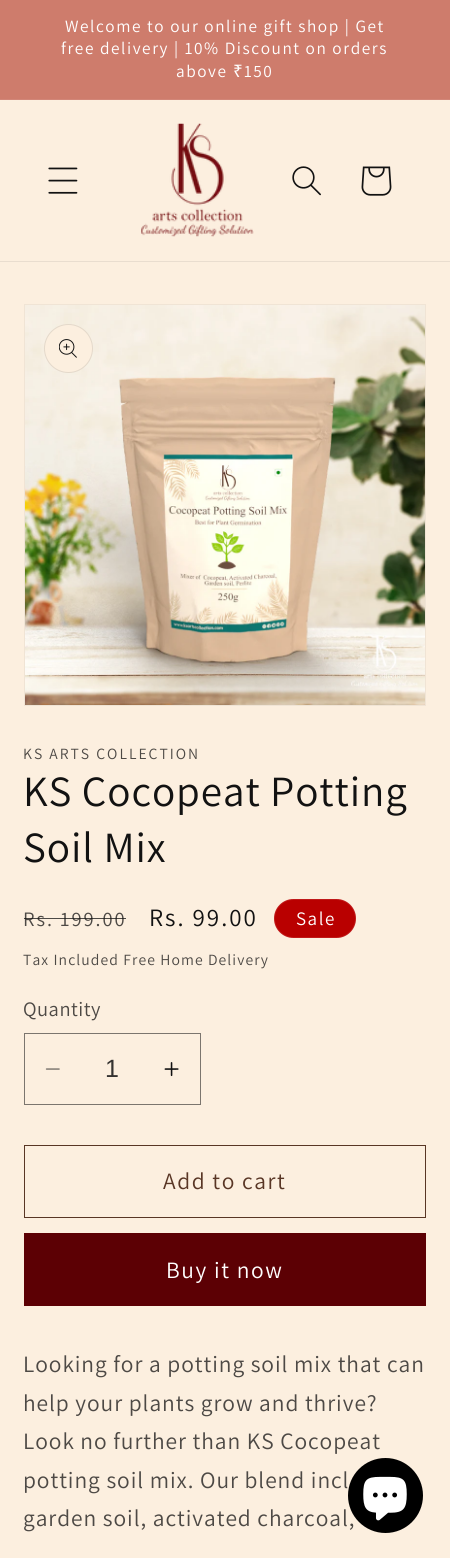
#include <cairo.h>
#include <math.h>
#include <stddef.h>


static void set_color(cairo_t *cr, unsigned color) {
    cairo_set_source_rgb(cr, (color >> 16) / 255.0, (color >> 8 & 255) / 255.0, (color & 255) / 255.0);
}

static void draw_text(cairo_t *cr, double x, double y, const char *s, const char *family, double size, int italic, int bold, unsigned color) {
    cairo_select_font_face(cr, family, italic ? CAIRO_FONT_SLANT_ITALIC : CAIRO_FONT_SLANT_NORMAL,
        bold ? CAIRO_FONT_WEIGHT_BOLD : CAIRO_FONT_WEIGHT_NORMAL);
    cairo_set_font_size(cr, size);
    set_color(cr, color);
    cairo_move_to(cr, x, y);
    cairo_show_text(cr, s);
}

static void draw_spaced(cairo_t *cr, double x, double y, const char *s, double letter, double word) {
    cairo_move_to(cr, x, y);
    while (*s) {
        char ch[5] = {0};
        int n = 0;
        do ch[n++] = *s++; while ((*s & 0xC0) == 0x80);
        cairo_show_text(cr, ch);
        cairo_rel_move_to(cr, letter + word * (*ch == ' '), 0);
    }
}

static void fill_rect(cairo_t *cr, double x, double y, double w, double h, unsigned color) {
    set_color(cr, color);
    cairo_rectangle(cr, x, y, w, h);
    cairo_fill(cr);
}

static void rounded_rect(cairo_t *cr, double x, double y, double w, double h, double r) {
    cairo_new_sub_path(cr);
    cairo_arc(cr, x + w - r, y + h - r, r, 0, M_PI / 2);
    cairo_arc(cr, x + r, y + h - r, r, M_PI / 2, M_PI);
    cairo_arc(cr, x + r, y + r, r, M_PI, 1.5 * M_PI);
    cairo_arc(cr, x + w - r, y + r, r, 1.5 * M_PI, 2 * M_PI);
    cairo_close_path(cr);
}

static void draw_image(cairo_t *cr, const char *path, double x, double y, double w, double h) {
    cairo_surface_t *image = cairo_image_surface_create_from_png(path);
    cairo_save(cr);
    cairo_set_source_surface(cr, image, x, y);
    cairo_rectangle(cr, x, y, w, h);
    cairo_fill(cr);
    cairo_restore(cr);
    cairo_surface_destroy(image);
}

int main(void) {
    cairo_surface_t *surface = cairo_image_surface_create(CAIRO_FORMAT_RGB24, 450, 1558);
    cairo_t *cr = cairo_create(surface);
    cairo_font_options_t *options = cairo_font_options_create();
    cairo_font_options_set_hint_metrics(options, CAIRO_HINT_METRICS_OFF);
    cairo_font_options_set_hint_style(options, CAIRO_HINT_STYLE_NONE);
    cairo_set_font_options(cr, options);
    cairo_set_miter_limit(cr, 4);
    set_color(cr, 0xFCEFDF);
    cairo_paint(cr);
    fill_rect(cr, 0, 0, 450, 99, 0xCE7C6C);
    fill_rect(cr, 0, 99, 450, 1, 0xD28678);
    cairo_select_font_face(cr, "Assistant", CAIRO_FONT_SLANT_NORMAL, CAIRO_FONT_WEIGHT_NORMAL);
    cairo_set_font_size(cr, 17.25);
    set_color(cr, 0xFFFFFF);
    draw_spaced(cr, 65, 32, "Welcome to our online gift shop | Get", 1.55, 0);
    draw_spaced(cr, 61, 54, "free delivery | 10% Discount on orders", 1.55, 0);
    draw_spaced(cr, 176, 77, "above", 1.55, 0);
    cairo_select_font_face(cr, "Noto Sans", CAIRO_FONT_SLANT_NORMAL, CAIRO_FONT_WEIGHT_NORMAL);
    draw_spaced(cr, 233, 77, "₹", 1.55, 0);
    cairo_select_font_face(cr, "Assistant", CAIRO_FONT_SLANT_NORMAL, CAIRO_FONT_WEIGHT_NORMAL);
    draw_spaced(cr, 244, 77, "150", 1.55, 0);
    fill_rect(cr, 0, 261, 450, 1, 0xE9DDCF);
    draw_image(cr, "assets/img1.png", 48, 167, 30, 27);
    draw_image(cr, "assets/img2.png", 141, 123, 113, 114);
    draw_image(cr, "assets/img3.png", 292, 166, 29, 30);
    draw_image(cr, "assets/img4.png", 361, 166, 31, 30);
    cairo_rectangle(cr, 24.5, 304.5, 401, 401);
    set_color(cr, 0xF0E4D5);
    cairo_set_line_width(cr, 1);
    cairo_stroke(cr);
    draw_image(cr, "assets/img5.png", 25, 305, 400, 400);
    set_color(cr, 0xFCEFDF);
    cairo_arc(cr, 68.5, 348.5, 24.5, 0, 2 * M_PI);
    cairo_fill(cr);
    cairo_arc(cr, 68.5, 348.5, 24, 0, 2 * M_PI);
    cairo_set_source_rgba(cr, 0.071, 0.071, 0.071, 0.1);
    cairo_stroke(cr);
    draw_image(cr, "assets/img6.png", 59, 339, 18, 19);
    cairo_set_font_size(cr, 15.6);
    set_color(cr, 0x4D4945);
    draw_spaced(cr, 23, 759, "KS ARTS COLLECTION", 2, 0);
    cairo_set_font_size(cr, 43.1);
    set_color(cr, 0x121212);
    draw_spaced(cr, 23, 806, "KS Cocopeat Potting", 0.9, 0);
    draw_spaced(cr, 23, 862, "Soil Mix", 0.9, 0);
    cairo_set_font_size(cr, 20.5);
    set_color(cr, 0x4D4945);
    draw_spaced(cr, 23, 926, "Rs. 199.00", 2, 0);
    cairo_set_source_rgba(cr, 0.071, 0.071, 0.071, 0.75);
    cairo_rectangle(cr, 24, 918, 102, 1);
    cairo_fill(cr);
    cairo_set_font_size(cr, 25);
    set_color(cr, 0x121212);
    draw_spaced(cr, 149, 926, "Rs. 99.00", 2, 0);
    set_color(cr, 0xB90000);
    rounded_rect(cr, 274, 899, 82, 39, 19.5);
    cairo_fill(cr);
    rounded_rect(cr, 274.5, 899.5, 81, 38, 19);
    cairo_set_source_rgba(cr, 1, 1, 1, 0.1);
    cairo_stroke(cr);
    cairo_set_font_size(cr, 19);
    set_color(cr, 0xFFFFFF);
    draw_spaced(cr, 296, 925, "Sale", 1.55, 0);
    cairo_set_font_size(cr, 15.6);
    set_color(cr, 0x4D4945);
    draw_spaced(cr, 23, 965, "Tax Included Free Home Delivery", 1.1, 0);
    cairo_set_font_size(cr, 20.5);
    draw_spaced(cr, 23, 1016, "Quantity", 0.5, 0);
    draw_image(cr, "assets/img7.png", 45, 1068, 15, 2);
    draw_image(cr, "assets/img8.png", 164, 1062, 15, 15);
    cairo_rectangle(cr, 24.5, 1033.5, 176, 71);
    set_color(cr, 0x7B756E);
    cairo_stroke(cr);
    draw_text(cr, 105, 1077, "1", "Liberation Sans", 25, 0, 0, 0x353331);
    cairo_rectangle(cr, 24.5, 1145.5, 401, 72);
    set_color(cr, 0x593625);
    cairo_stroke(cr);
    cairo_select_font_face(cr, "Assistant", CAIRO_FONT_SLANT_NORMAL, CAIRO_FONT_WEIGHT_NORMAL);
    cairo_set_font_size(cr, 23.4);
    draw_spaced(cr, 163, 1189, "Add to cart", 1.55, 0);
    fill_rect(cr, 24, 1233, 402, 73, 0x5C0004);
    set_color(cr, 0xFFFFFF);
    draw_spaced(cr, 166, 1278, "Buy it now", 1.55, 0);
    set_color(cr, 0x4D4945);
    draw_spaced(cr, 23, 1372, "Looking for a potting soil mix that can", 0.95, 0);
    draw_spaced(cr, 23, 1411, "help your plants grow and thrive?", 0.95, 0);
    draw_spaced(cr, 23, 1449, "Look no further than KS Cocopeat", 0.95, 0);
    draw_spaced(cr, 23, 1488, "potting soil mix. Our blend incl", 0.95, 0);
    draw_spaced(cr, 23, 1526, "garden soil, activated charcoal,", 0.95, 0);
    set_color(cr, 0x000000);
    cairo_new_path(cr);
    cairo_arc(cr, 385.5, 1495.5, 37.5, 0, 2 * M_PI);
    cairo_fill(cr);
    draw_image(cr, "assets/img9.png", 363, 1476, 44, 45);
    cairo_surface_write_to_png(surface, "output.png");
    cairo_font_options_destroy(options);
    cairo_destroy(cr);
    cairo_surface_destroy(surface);
    return 0;
}
